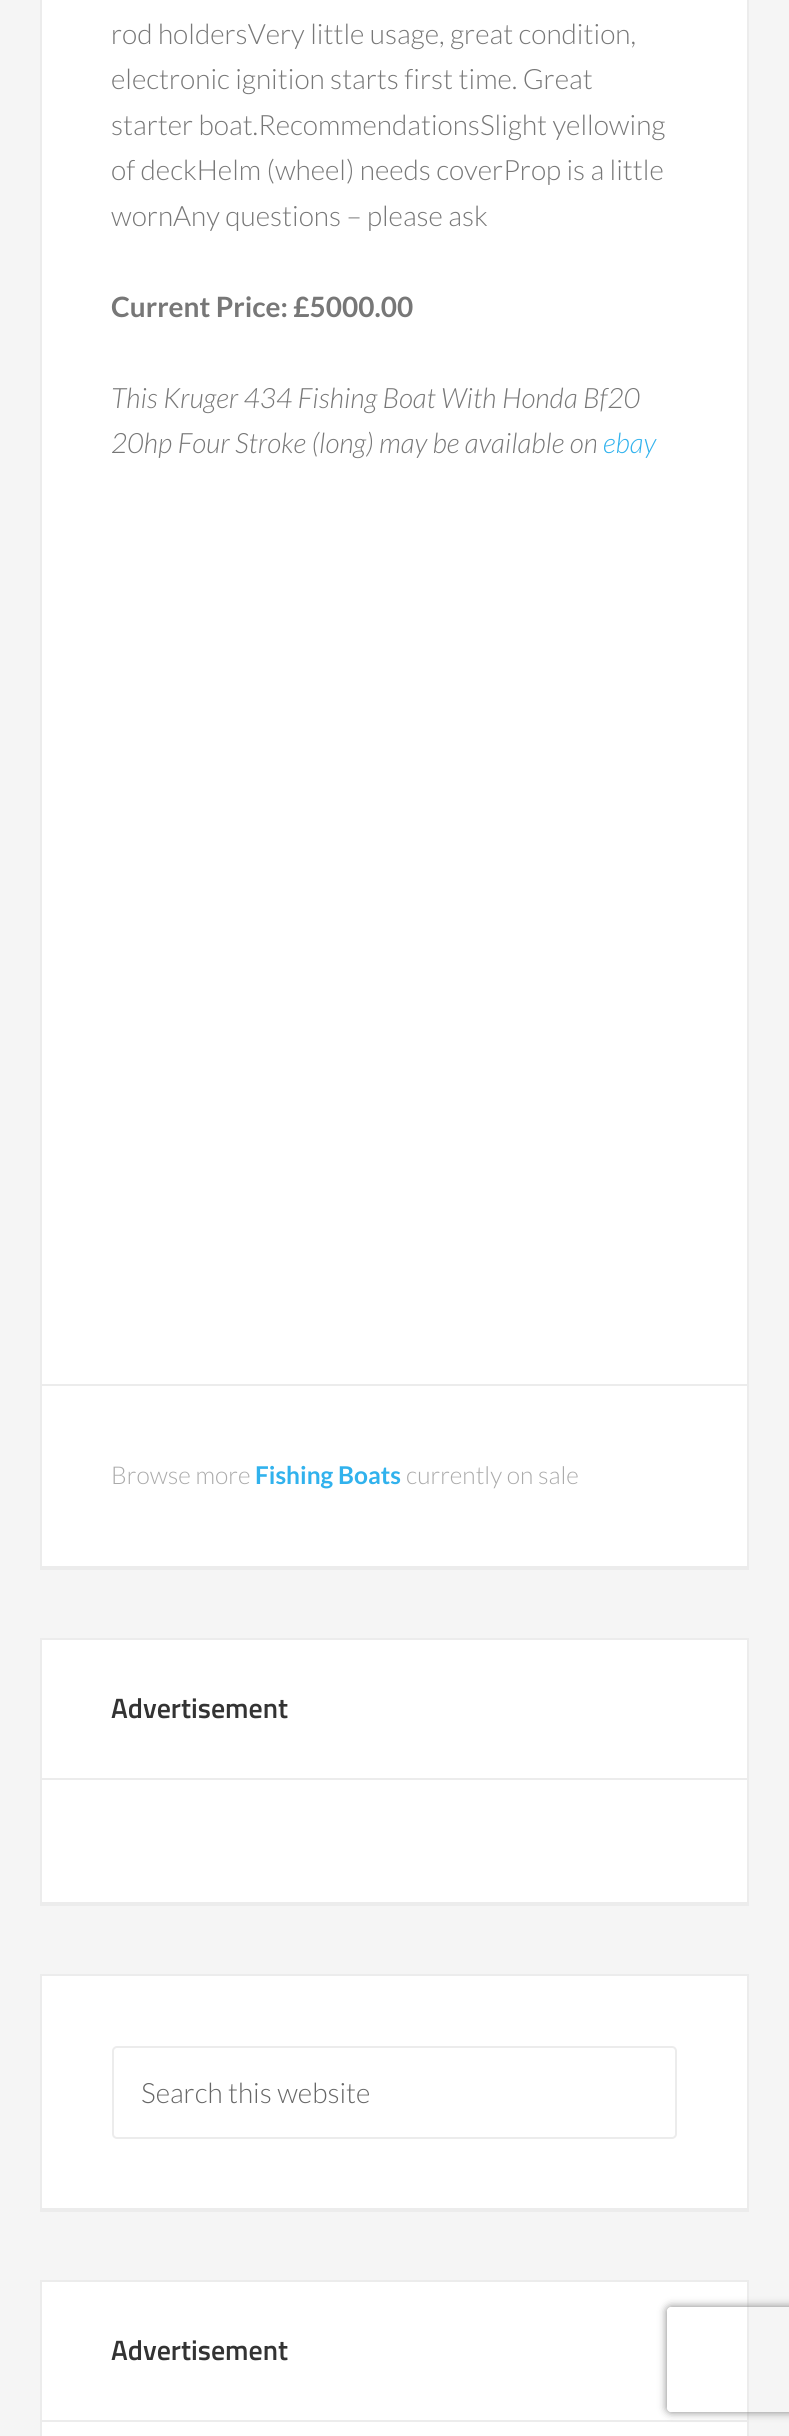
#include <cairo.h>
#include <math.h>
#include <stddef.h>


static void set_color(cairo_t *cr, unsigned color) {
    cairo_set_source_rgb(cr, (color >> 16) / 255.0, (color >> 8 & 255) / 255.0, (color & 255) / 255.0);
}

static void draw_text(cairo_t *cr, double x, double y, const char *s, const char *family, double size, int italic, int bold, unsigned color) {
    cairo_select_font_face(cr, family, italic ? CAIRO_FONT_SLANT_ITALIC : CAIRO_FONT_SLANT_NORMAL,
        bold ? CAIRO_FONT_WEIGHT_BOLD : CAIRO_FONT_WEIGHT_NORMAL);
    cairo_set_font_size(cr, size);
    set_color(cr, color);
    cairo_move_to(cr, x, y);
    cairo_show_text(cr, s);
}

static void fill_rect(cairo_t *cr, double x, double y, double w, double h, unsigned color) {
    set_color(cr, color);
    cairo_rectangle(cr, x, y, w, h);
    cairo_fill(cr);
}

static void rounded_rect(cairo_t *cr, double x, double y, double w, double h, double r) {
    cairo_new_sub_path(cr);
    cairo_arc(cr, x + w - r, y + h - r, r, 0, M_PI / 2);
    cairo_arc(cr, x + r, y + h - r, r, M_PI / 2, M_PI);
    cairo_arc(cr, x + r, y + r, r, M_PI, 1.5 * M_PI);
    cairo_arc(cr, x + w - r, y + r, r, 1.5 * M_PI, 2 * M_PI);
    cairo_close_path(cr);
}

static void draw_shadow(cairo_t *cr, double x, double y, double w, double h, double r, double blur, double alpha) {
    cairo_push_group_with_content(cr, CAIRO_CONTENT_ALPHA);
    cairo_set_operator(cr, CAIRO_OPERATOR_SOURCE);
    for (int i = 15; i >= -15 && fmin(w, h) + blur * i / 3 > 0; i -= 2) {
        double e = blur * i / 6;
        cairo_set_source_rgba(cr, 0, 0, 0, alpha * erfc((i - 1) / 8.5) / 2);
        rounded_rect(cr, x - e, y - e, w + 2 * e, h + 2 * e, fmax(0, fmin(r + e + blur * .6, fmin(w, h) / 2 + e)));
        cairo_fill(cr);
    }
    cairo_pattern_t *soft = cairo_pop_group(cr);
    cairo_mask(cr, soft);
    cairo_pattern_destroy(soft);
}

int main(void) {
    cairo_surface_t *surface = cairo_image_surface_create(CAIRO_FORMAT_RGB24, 789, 2436);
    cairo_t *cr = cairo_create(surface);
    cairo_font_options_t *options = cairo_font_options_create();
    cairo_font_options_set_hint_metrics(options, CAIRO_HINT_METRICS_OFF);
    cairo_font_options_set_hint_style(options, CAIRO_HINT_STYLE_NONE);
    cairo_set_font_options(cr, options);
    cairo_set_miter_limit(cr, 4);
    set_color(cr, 0xF5F5F5);
    cairo_paint(cr);
    set_color(cr, 0xECECEC);
    cairo_new_path(cr);
    cairo_move_to(cr, 40, -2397);
    cairo_line_to(cr, 40, 1570);
    cairo_line_to(cr, 749, 1570);
    cairo_line_to(cr, 749, 1568);
    cairo_line_to(cr, 40, 1568);
    cairo_close_path(cr);
    cairo_fill(cr);
    set_color(cr, 0xFFFFFF);
    cairo_rectangle(cr, 41, -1, 707, 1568);
    cairo_fill_preserve(cr);
    set_color(cr, 0xECECEC);
    cairo_stroke(cr);
    draw_text(cr, 111, 44, "rod holdersVery little usage, great condition,", "Lato Light", 28, 0, 0, 0x777777);
    draw_text(cr, 111, 89, "electronic ignition starts first time. Great", "Lato Light", 28, 0, 0, 0x777777);
    draw_text(cr, 111, 135, "starter boat.RecommendationsSlight yellowing", "Lato Light", 28, 0, 0, 0x777777);
    draw_text(cr, 111, 180, "of deckHelm (wheel) needs coverProp is a little", "Lato Light", 28, 0, 0, 0x777777);
    draw_text(cr, 111, 226, "wornAny questions – please ask", "Lato Light", 28, 0, 0, 0x777777);
    draw_text(cr, 111, 317, "Current Price: £5000.00", "Lato", 28, 0, 1, 0x777777);
    draw_text(cr, 111, 408, "This Kruger 434 Fishing Boat With Honda Bf20", "Lato Light", 28, 1, 0, 0x777777);
    draw_text(cr, 111, 453, "20hp Four Stroke (long) may be available on", "Lato Light", 28, 1, 0, 0x777777);
    draw_text(cr, 603, 453, "ebay", "Lato Light", 28, 1, 0, 0x31B2ED);
    fill_rect(cr, 42, 1384, 705, 2, 0xECECEC);
    draw_text(cr, 111, 1484, "Browse more", "Lato Light", 24.5, 0, 0, 0xAAAAAA);
    draw_text(cr, 255, 1484, "Fishing Boats", "Lato", 24.5, 0, 1, 0x31B2ED);
    draw_text(cr, 406, 1484, "currently on sale", "Lato Light", 24.5, 0, 0, 0xAAAAAA);
    set_color(cr, 0xECECEC);
    cairo_new_path(cr);
    cairo_move_to(cr, 40, 1640);
    cairo_line_to(cr, 40, 1906);
    cairo_line_to(cr, 749, 1906);
    cairo_line_to(cr, 749, 1904);
    cairo_line_to(cr, 40, 1904);
    cairo_close_path(cr);
    cairo_fill(cr);
    set_color(cr, 0xFFFFFF);
    cairo_rectangle(cr, 41, 1639, 707, 264);
    cairo_fill_preserve(cr);
    set_color(cr, 0xECECEC);
    cairo_stroke(cr);
    fill_rect(cr, 42, 1778, 705, 2, 0xECECEC);
    draw_text(cr, 111, 1718, "Advertisement", "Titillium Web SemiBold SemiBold", 28, 0, 0, 0x333333);
    set_color(cr, 0xECECEC);
    cairo_new_path(cr);
    cairo_move_to(cr, 40, 1976);
    cairo_line_to(cr, 40, 2212);
    cairo_line_to(cr, 749, 2212);
    cairo_line_to(cr, 749, 2210);
    cairo_line_to(cr, 40, 2210);
    cairo_close_path(cr);
    cairo_fill(cr);
    set_color(cr, 0xFFFFFF);
    cairo_rectangle(cr, 41, 1975, 707, 234);
    cairo_fill_preserve(cr);
    set_color(cr, 0xECECEC);
    cairo_stroke(cr);
    rounded_rect(cr, 113, 2047, 563, 91, 4);
    cairo_stroke(cr);
    draw_text(cr, 141, 2103, "Search this website", "Lato Light", 28, 0, 0, 0x666666);
    set_color(cr, 0xFFFFFF);
    cairo_rectangle(cr, 41, 2281, 707, 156);
    cairo_fill_preserve(cr);
    set_color(cr, 0xECECEC);
    cairo_stroke(cr);
    fill_rect(cr, 42, 2420, 705, 2, 0xECECEC);
    draw_text(cr, 111, 2360, "Advertisement", "Titillium Web SemiBold SemiBold", 28, 0, 0, 0x333333);
    cairo_save(cr);
    cairo_set_fill_rule(cr, CAIRO_FILL_RULE_EVEN_ODD);
    cairo_new_path(cr);
    cairo_move_to(cr, 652, 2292);
    cairo_line_to(cr, 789, 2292);
    cairo_line_to(cr, 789, 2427);
    cairo_line_to(cr, 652, 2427);
    cairo_close_path(cr);
    cairo_move_to(cr, 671, 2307);
    cairo_line_to(cr, 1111, 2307);
    cairo_curve_to(cr, 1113, 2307, 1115, 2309, 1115, 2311);
    cairo_line_to(cr, 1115, 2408);
    cairo_curve_to(cr, 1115, 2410, 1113, 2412, 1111, 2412);
    cairo_line_to(cr, 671, 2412);
    cairo_curve_to(cr, 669, 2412, 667, 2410, 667, 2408);
    cairo_line_to(cr, 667, 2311);
    cairo_curve_to(cr, 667, 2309, 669, 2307, 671, 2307);
    cairo_close_path(cr);
    cairo_clip(cr);
    set_color(cr, 0x808080);
    draw_shadow(cr, 667, 2307, 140, 105, 4, 4.5, 1);
    cairo_restore(cr);
    cairo_surface_write_to_png(surface, "output.png");
    cairo_font_options_destroy(options);
    cairo_destroy(cr);
    cairo_surface_destroy(surface);
    return 0;
}
